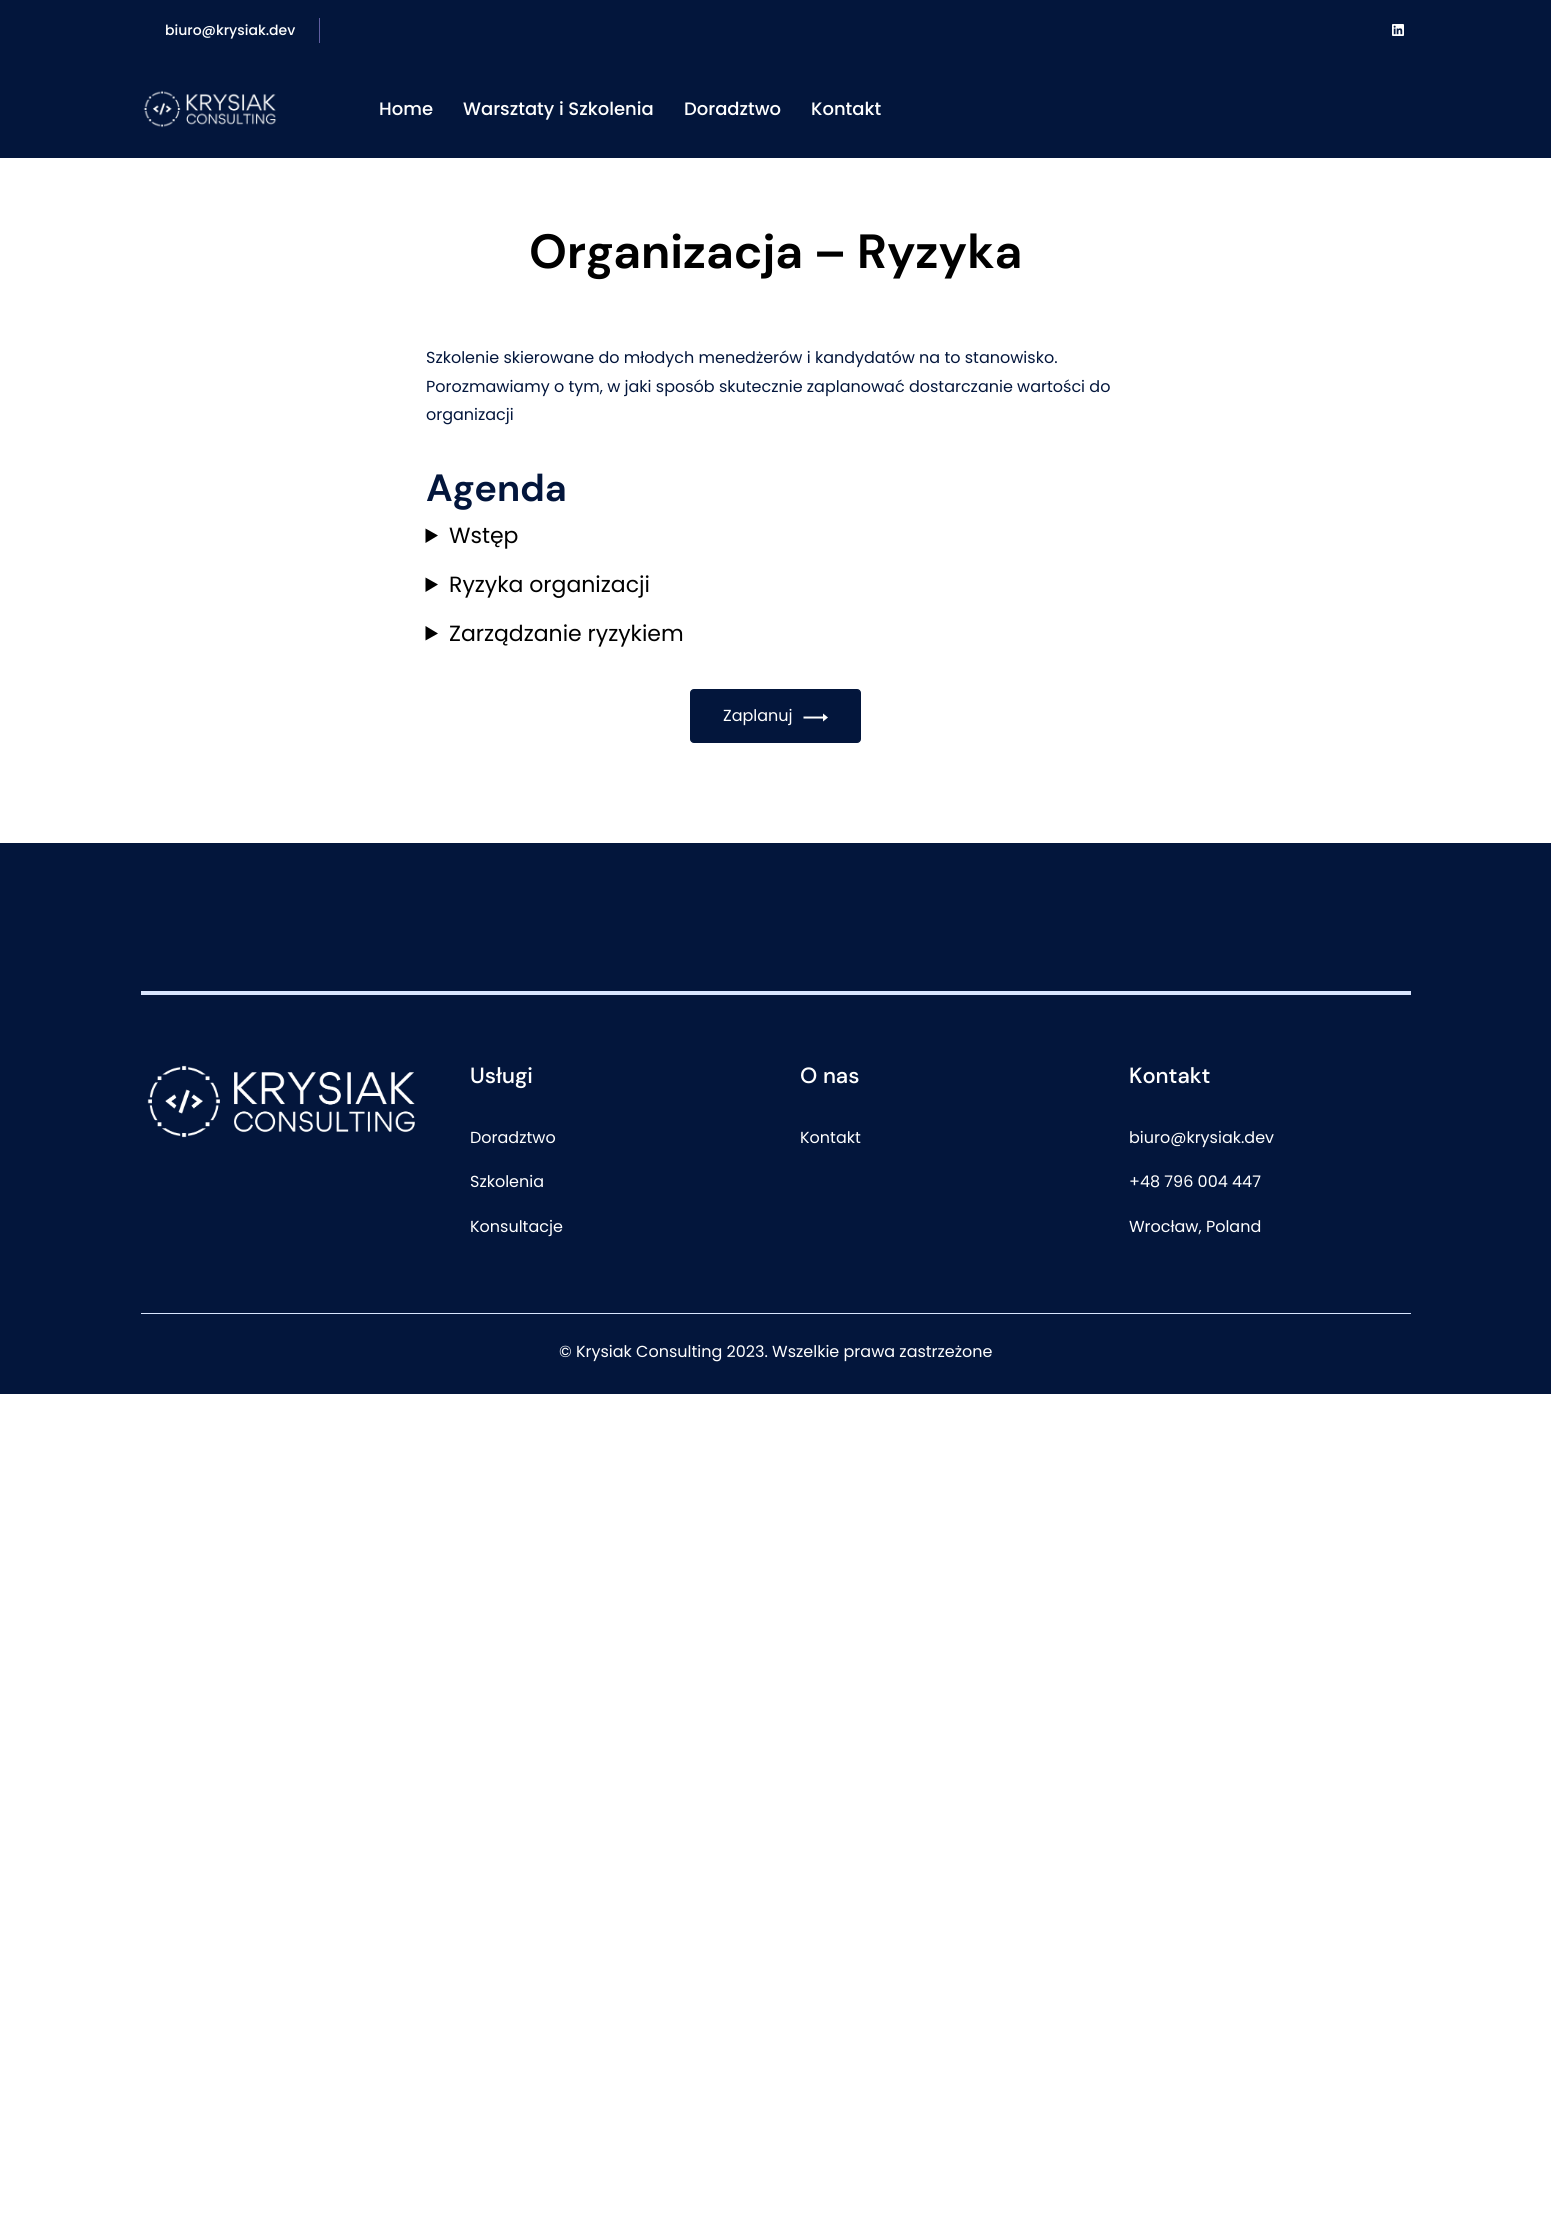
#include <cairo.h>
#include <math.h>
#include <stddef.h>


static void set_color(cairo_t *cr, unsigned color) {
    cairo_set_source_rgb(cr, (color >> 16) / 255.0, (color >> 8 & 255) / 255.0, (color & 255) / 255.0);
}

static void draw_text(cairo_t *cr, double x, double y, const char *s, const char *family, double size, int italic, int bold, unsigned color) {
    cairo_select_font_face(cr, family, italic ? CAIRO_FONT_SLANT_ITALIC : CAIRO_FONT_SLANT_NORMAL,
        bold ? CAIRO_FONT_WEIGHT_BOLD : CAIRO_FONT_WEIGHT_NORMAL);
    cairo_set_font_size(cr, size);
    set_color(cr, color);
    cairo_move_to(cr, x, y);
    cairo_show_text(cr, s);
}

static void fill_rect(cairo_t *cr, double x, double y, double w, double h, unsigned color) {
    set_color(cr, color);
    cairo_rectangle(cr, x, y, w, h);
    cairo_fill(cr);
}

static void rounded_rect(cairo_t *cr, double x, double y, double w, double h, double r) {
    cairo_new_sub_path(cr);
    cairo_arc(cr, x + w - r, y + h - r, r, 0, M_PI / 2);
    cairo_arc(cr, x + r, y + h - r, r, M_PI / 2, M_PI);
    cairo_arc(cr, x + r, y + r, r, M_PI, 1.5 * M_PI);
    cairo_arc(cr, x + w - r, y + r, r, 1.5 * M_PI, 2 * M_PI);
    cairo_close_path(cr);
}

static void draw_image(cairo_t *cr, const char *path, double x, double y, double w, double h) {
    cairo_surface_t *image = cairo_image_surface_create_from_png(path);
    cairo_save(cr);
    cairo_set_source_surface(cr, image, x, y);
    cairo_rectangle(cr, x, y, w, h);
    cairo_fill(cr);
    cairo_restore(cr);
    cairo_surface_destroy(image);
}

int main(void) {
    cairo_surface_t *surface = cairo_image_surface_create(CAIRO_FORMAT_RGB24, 1551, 2239);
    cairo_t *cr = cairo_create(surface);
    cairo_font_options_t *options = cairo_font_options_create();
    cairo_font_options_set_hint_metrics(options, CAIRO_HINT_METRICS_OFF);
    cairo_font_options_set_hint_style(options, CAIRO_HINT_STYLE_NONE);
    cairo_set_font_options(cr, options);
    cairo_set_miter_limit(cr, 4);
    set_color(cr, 0xFFFFFF);
    cairo_paint(cr);
    fill_rect(cr, 0, 0, 1551, 158, 0x03163C);
    fill_rect(cr, 319, 18, 1, 25, 0x605EA1);
    draw_text(cr, 165, 35, "biuro@krysiak.dev", "Poppins Medium", 14, 0, 0, 0xFFFFFF);
    draw_image(cr, "assets/img1.png", 1392, 24, 12, 12);
    draw_image(cr, "assets/img2.png", 143, 90, 134, 38);
    draw_text(cr, 379, 115, "Home", "Poppins Medium", 18, 0, 0, 0xFFFFFF);
    draw_text(cr, 463, 115, "Warsztaty i Szkolenia", "Poppins Medium", 18, 0, 0, 0xFFFFFF);
    draw_text(cr, 684, 115, "Doradztwo", "Poppins Medium", 18, 0, 0, 0xFFFFFF);
    draw_text(cr, 811, 115, "Kontakt", "Poppins Medium", 18, 0, 0, 0xFFFFFF);
    draw_text(cr, 529, 268, "Organizacja – Ryzyka", "DM Sans", 48, 0, 1, 0x000000);
    draw_text(cr, 426, 363, "Szkolenie skierowane do młodych menedżerów i kandydatów na to stanowisko.", "Poppins", 16, 0, 0, 0x03163C);
    draw_text(cr, 426, 392, "Porozmawiamy o tym, w jaki sposób skutecznie zaplanować dostarczanie wartości do", "Poppins", 16, 0, 0, 0x03163C);
    draw_text(cr, 426, 420, "organizacji", "Poppins", 16, 0, 0, 0x03163C);
    draw_text(cr, 426, 501, "Agenda", "DM Sans", 38, 0, 1, 0x03163C);
    set_color(cr, 0x000000);
    cairo_new_path(cr);
    cairo_move_to(cr, 425.5, 528.5);
    cairo_line_to(cr, 438, 535.5);
    cairo_line_to(cr, 425.5, 543);
    cairo_close_path(cr);
    cairo_fill(cr);
    draw_text(cr, 449, 543, "Wstęp", "Poppins", 22, 0, 0, 0x000000);
    cairo_new_path(cr);
    cairo_move_to(cr, 425.5, 577.5);
    cairo_line_to(cr, 438, 584.5);
    cairo_line_to(cr, 425.5, 592);
    cairo_close_path(cr);
    cairo_fill(cr);
    draw_text(cr, 449, 592, "Ryzyka organizacji", "Poppins", 22, 0, 0, 0x000000);
    cairo_new_path(cr);
    cairo_move_to(cr, 425.5, 626);
    cairo_line_to(cr, 438, 633.5);
    cairo_line_to(cr, 425.5, 640.5);
    cairo_close_path(cr);
    cairo_fill(cr);
    draw_text(cr, 449, 641, "Zarządzanie ryzykiem", "Poppins", 22, 0, 0, 0x000000);
    set_color(cr, 0x03163C);
    rounded_rect(cr, 690.5, 689.5, 170, 53, 3.5);
    cairo_fill_preserve(cr);
    cairo_set_line_width(cr, 1);
    cairo_stroke(cr);
    draw_text(cr, 723, 721, "Zaplanuj", "Poppins", 16, 0, 0, 0xFFFFFF);
    cairo_new_path(cr);
    cairo_move_to(cr, 828, 717.5);
    cairo_line_to(cr, 823, 713.5);
    cairo_line_to(cr, 823, 716.5);
    cairo_line_to(cr, 803.5, 716.5);
    cairo_line_to(cr, 803.5, 718.5);
    cairo_line_to(cr, 823, 718.5);
    cairo_line_to(cr, 823, 721.5);
    cairo_close_path(cr);
    cairo_fill(cr);
    fill_rect(cr, 0, 843, 1551, 551, 0x03163C);
    fill_rect(cr, 141, 991, 1270, 4, 0xD9E6FF);
    draw_image(cr, "assets/img3.png", 147, 1065, 268, 73);
    draw_text(cr, 470, 1083, "Usługi", "DM Sans Medium", 22, 0, 0, 0xFFFFFF);
    draw_text(cr, 470, 1143, "Doradztwo", "Poppins", 16, 0, 0, 0xFFFFFF);
    draw_text(cr, 470, 1187, "Szkolenia", "Poppins", 16, 0, 0, 0xFFFFFF);
    draw_text(cr, 470, 1232, "Konsultacje", "Poppins", 16, 0, 0, 0xFFFFFF);
    draw_text(cr, 800, 1083, "O nas", "DM Sans Medium", 22, 0, 0, 0xFFFFFF);
    draw_text(cr, 800, 1143, "Kontakt", "Poppins", 16, 0, 0, 0xFFFFFF);
    draw_text(cr, 1129, 1083, "Kontakt", "DM Sans Medium", 22, 0, 0, 0xFFFFFF);
    draw_text(cr, 1129, 1143, "biuro@krysiak.dev", "Poppins", 16, 0, 0, 0xFFFFFF);
    draw_text(cr, 1129, 1187, "+48 796 004 447", "Poppins", 16, 0, 0, 0xFFFFFF);
    draw_text(cr, 1129, 1232, "Wrocław, Poland", "Poppins", 16, 0, 0, 0xFFFFFF);
    fill_rect(cr, 141, 1313, 1270, 1, 0xD9E6FF);
    draw_text(cr, 559, 1357, "© Krysiak Consulting 2023. Wszelkie prawa zastrzeżone", "Poppins", 16, 0, 0, 0xFFFFFF);
    cairo_surface_write_to_png(surface, "output.png");
    cairo_font_options_destroy(options);
    cairo_destroy(cr);
    cairo_surface_destroy(surface);
    return 0;
}
